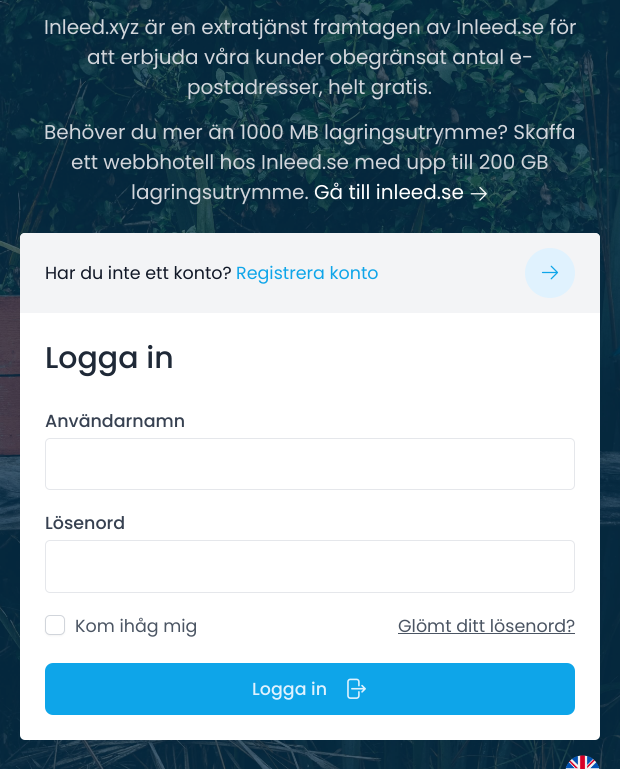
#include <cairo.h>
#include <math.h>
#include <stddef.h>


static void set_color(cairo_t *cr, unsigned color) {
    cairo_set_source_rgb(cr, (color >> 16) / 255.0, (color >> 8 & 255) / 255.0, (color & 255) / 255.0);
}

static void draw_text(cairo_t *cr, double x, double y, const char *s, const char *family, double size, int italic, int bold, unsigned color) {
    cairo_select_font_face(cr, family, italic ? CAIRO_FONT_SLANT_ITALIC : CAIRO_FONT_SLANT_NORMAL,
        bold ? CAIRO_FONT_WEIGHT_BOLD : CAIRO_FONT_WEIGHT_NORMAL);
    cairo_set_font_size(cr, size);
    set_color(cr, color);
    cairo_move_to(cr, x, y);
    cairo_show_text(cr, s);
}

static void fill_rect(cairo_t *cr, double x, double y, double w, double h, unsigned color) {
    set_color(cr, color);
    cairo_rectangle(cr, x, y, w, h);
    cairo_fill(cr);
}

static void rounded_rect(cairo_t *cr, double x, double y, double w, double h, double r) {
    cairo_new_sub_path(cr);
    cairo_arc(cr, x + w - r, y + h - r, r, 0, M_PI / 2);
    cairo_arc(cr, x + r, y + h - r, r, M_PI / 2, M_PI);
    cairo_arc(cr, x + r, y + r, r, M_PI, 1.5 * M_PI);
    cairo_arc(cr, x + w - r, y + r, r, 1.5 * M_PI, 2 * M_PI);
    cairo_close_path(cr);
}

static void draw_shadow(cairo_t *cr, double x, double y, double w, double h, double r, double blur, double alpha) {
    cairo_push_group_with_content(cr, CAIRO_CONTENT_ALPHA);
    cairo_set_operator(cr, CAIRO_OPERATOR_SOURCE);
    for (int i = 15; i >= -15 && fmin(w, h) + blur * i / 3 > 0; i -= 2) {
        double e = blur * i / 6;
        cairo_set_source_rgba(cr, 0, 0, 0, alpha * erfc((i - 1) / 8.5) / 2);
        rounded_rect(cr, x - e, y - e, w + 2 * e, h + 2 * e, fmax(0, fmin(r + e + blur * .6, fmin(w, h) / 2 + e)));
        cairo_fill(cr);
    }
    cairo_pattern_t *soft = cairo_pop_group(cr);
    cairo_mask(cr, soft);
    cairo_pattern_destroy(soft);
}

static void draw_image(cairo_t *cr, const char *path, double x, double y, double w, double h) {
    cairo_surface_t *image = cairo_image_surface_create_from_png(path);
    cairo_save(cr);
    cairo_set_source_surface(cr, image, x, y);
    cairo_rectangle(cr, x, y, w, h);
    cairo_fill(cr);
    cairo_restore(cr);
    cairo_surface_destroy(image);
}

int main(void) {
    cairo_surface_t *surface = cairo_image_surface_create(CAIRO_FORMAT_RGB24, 620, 769);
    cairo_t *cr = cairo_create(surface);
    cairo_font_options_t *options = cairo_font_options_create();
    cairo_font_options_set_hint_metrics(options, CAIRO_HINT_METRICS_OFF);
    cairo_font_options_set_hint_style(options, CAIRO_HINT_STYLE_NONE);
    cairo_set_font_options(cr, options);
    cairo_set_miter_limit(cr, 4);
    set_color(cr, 0xFFFFFF);
    cairo_paint(cr);
    draw_image(cr, "assets/img1.png", 0, 0, 620, 769);
    draw_text(cr, 44, 34, "Inleed.xyz är en extratjänst framtagen av Inleed.se för", "Poppins", 20, 0, 0, 0xD1D5DB);
    draw_text(cr, 87, 64, "att erbjuda våra kunder obegränsat antal e-", "Poppins", 20, 0, 0, 0xD1D5DB);
    draw_text(cr, 187, 94, "postadresser, helt gratis.", "Poppins", 20, 0, 0, 0xD1D5DB);
    draw_text(cr, 44, 139, "Behöver du mer än 1000 MB lagringsutrymme? Skaffa", "Poppins", 20, 0, 0, 0xD1D5DB);
    draw_text(cr, 71, 169, "ett webbhotell hos Inleed.se med upp till 200 GB", "Poppins", 20, 0, 0, 0xD1D5DB);
    draw_text(cr, 131, 199, "lagringsutrymme.", "Poppins", 20, 0, 0, 0xD1D5DB);
    draw_text(cr, 314, 199, "Gå till inleed.se", "Poppins", 20, 0, 0, 0xFFFFFF);
    draw_image(cr, "assets/img2.png", 470, 187, 17, 14);
    rounded_rect(cr, 20, 233, 580, 507, 5);
    cairo_fill(cr);
    set_color(cr, 0xF3F4F6);
    cairo_new_path(cr);
    cairo_move_to(cr, 25, 233);
    cairo_line_to(cr, 595, 233);
    cairo_curve_to(cr, 598, 233, 600, 235, 600, 238);
    cairo_line_to(cr, 600, 313);
    cairo_line_to(cr, 20, 313);
    cairo_line_to(cr, 20, 238);
    cairo_curve_to(cr, 20, 235, 22, 233, 25, 233);
    cairo_close_path(cr);
    cairo_fill(cr);
    draw_text(cr, 45, 279, "Har du inte ett konto?", "Poppins", 17.5, 0, 0, 0x111827);
    draw_text(cr, 236, 279, "Registrera konto", "Poppins", 17.5, 0, 0, 0x0EA5E9);
    set_color(cr, 0xE0F2FE);
    cairo_new_path(cr);
    cairo_arc(cr, 550, 273, 25, 0, 2 * M_PI);
    cairo_fill(cr);
    draw_image(cr, "assets/img3.png", 541, 265, 18, 15);
    draw_text(cr, 45, 368, "Logga in", "Poppins Medium", 30, 0, 0, 0x1F2937);
    draw_text(cr, 45, 427, "Användarnamn", "Poppins Medium", 17.5, 0, 0, 0x374151);
    rounded_rect(cr, 45.5, 438.5, 529, 51, 4.5);
    set_color(cr, 0xE5E7EB);
    cairo_set_line_width(cr, 1);
    cairo_stroke(cr);
    draw_text(cr, 45, 529, "Lösenord", "Poppins Medium", 17.5, 0, 0, 0x374151);
    rounded_rect(cr, 45.5, 540.5, 529, 52, 4.5);
    set_color(cr, 0xE5E7EB);
    cairo_stroke(cr);
    set_color(cr, 0x000000);
    draw_shadow(cr, 45, 616, 20, 20, 5, 1, 0.05);
    set_color(cr, 0xFFFFFF);
    rounded_rect(cr, 45.5, 615.5, 19, 19, 4.5);
    cairo_fill_preserve(cr);
    set_color(cr, 0xD1D5DB);
    cairo_stroke(cr);
    draw_text(cr, 75, 632, "Kom ihåg mig", "Poppins", 17.5, 0, 0, 0x4B5563);
    draw_text(cr, 398, 632, "Glömt ditt lösenord?", "Poppins", 17.5, 0, 0, 0x4B5563);
    fill_rect(cr, 398, 633, 177, 1, 0x4B5563);
    set_color(cr, 0x0EA5E9);
    rounded_rect(cr, 45, 663, 530, 52, 8);
    cairo_fill(cr);
    draw_text(cr, 252, 695, "Logga in", "Poppins Medium", 17.5, 0, 0, 0xE0F2FE);
    draw_image(cr, "assets/img4.png", 347, 678, 19, 21);
    draw_image(cr, "assets/img5.png", 565, 755, 35, 14);
    cairo_surface_write_to_png(surface, "output.png");
    cairo_font_options_destroy(options);
    cairo_destroy(cr);
    cairo_surface_destroy(surface);
    return 0;
}
